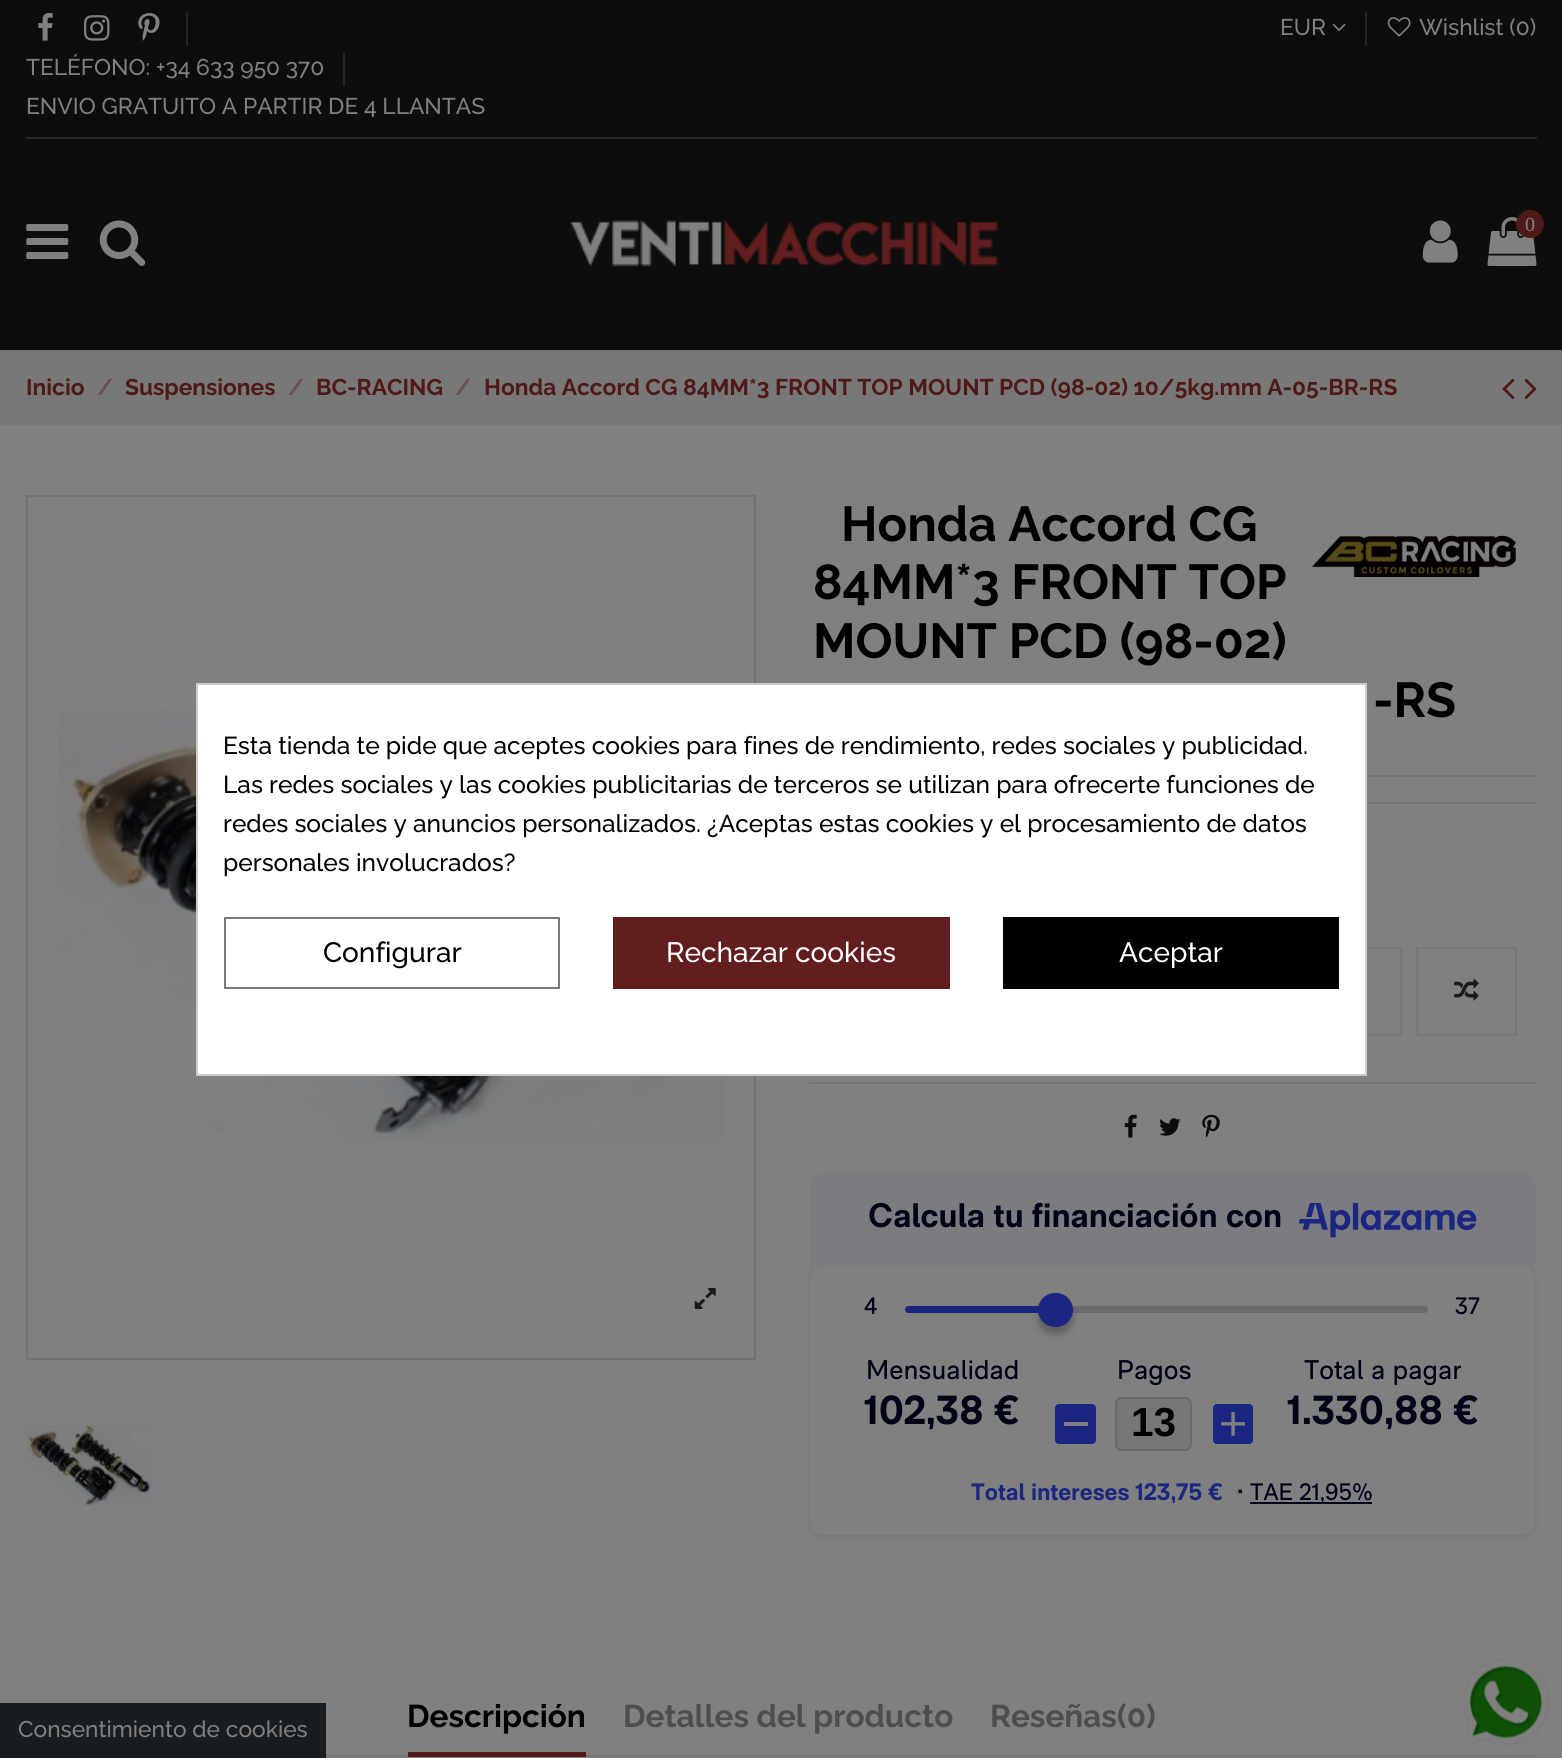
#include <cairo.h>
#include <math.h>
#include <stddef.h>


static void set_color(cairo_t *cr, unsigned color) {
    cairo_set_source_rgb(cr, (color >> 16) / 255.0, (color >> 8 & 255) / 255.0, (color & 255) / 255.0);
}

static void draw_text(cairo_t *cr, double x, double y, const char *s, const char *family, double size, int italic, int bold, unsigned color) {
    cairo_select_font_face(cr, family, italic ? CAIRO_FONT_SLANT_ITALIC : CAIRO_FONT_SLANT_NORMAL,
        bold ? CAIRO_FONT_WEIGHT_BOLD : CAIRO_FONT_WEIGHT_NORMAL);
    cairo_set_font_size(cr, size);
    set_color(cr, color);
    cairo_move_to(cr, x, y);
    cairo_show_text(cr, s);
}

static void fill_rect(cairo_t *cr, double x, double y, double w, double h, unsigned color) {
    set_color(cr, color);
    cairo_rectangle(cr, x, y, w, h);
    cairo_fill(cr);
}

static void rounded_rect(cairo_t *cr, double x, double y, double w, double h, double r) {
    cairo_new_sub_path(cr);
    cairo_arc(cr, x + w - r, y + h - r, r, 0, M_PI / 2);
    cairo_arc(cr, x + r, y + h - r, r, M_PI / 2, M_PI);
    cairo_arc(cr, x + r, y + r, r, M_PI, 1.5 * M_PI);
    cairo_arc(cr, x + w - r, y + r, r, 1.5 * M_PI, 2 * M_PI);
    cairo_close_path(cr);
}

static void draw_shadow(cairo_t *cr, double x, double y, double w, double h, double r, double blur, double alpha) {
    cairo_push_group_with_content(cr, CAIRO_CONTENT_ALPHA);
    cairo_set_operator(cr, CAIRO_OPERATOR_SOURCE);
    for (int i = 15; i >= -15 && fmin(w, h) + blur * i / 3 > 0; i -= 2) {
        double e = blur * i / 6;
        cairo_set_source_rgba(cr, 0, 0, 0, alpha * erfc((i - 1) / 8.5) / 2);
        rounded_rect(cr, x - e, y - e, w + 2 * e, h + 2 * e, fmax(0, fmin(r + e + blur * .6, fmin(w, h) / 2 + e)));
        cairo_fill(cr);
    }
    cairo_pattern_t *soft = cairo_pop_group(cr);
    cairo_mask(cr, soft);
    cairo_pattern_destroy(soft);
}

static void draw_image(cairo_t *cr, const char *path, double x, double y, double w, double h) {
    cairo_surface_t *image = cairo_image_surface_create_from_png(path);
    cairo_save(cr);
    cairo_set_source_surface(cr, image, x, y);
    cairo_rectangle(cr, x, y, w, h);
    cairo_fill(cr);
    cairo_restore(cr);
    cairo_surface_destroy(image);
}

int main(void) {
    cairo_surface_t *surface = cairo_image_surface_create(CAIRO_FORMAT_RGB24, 1562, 1758);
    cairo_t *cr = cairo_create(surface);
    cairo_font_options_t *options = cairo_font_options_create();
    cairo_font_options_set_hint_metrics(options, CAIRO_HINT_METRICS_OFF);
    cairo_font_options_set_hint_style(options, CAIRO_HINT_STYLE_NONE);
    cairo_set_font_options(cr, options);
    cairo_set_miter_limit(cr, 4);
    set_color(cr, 0x808080);
    cairo_paint(cr);
    fill_rect(cr, 0, 0, 1562, 350, 0x0E0D0D);
    fill_rect(cr, 26, 137, 1511, 2, 0x282727);
    draw_text(cr, 1280, 35, "EUR", "Raleway Medium", 22.75, 0, 0, 0x808080);
    draw_image(cr, "assets/img1.png", 1332, 23, 14, 9);
    fill_rect(cr, 1365, 12, 2, 34, 0x252424);
    draw_image(cr, "assets/img2.png", 1387, 17, 24, 20);
    draw_text(cr, 1419, 35, "Wishlist (0)", "Raleway Medium", 22.75, 0, 0, 0x808080);
    draw_image(cr, "assets/img3.png", 38, 13, 15, 28);
    draw_image(cr, "assets/img4.png", 84, 15, 26, 26);
    draw_image(cr, "assets/img5.png", 138, 13, 22, 28);
    fill_rect(cr, 186, 12, 2, 34, 0x252424);
    draw_text(cr, 26, 75, "TELÉFONO: +34 633 950 370", "Raleway Medium", 22.75, 0, 0, 0x808080);
    fill_rect(cr, 343, 53, 2, 33, 0x252424);
    draw_text(cr, 26, 114, "ENVIO GRATUITO A PARTIR DE 4 LLANTAS", "Raleway Medium", 22.75, 0, 0, 0x808080);
    fill_rect(cr, 0, 350, 1562, 2, 0x727272);
    draw_image(cr, "assets/img6.png", 26, 224, 43, 35);
    draw_image(cr, "assets/img7.png", 99, 220, 47, 46);
    draw_image(cr, "assets/img8.png", 570, 220, 428, 47);
    draw_image(cr, "assets/img9.png", 1422, 220, 36, 43);
    draw_image(cr, "assets/img10.png", 1487, 217, 50, 49);
    set_color(cr, 0x501919);
    cairo_arc(cr, 1530, 224, 14, 0, 2 * M_PI);
    cairo_fill(cr);
    draw_text(cr, 1525, 231, "0", "Liberation Serif", 20, 0, 0, 0x808080);
    fill_rect(cr, 0, 352, 1562, 73, 0x787878);
    draw_text(cr, 26, 395, "Inicio", "Raleway", 22.75, 0, 1, 0x501919);
    draw_text(cr, 97, 395, "/", "Raleway", 22.75, 0, 1, 0x685252);
    draw_text(cr, 125, 395, "Suspensiones", "Raleway", 22.75, 0, 1, 0x501919);
    draw_text(cr, 288, 395, "/", "Raleway", 22.75, 0, 1, 0x685252);
    draw_text(cr, 316, 395, "BC-RACING", "Raleway", 22.75, 0, 1, 0x501919);
    draw_text(cr, 455, 395, "/", "Raleway", 22.75, 0, 1, 0x685252);
    draw_text(cr, 484, 395, "Honda Accord CG 84MM*3 FRONT TOP MOUNT PCD (98-02) 10/5kg.mm A-05-BR-RS", "Raleway", 22.75, 0, 1, 0x501919);
    draw_image(cr, "assets/img11.png", 1502, 378, 13, 22);
    draw_image(cr, "assets/img12.png", 1524, 378, 13, 22);
    cairo_rectangle(cr, 27, 496, 728, 863);
    set_color(cr, 0x727272);
    cairo_stroke(cr);
    draw_image(cr, "assets/img13.png", 58, 699, 667, 443);
    draw_image(cr, "assets/img14.png", 694, 1288, 22, 21);
    draw_image(cr, "assets/img15.png", 26, 1425, 126, 81);
    fill_rect(cr, 1367, 775, 170, 2, 0x747474);
    draw_text(cr, 841, 541, "Honda Accord CG", "Raleway", 49, 0, 1, 0x000000);
    draw_text(cr, 813, 599, "84MM*3 FRONT TOP", "Raleway", 49, 0, 1, 0x000000);
    draw_text(cr, 813, 658, "MOUNT PCD (98-02)", "Raleway", 49, 0, 1, 0x000000);
    draw_text(cr, 1373, 717, "-RS", "Raleway", 49, 0, 1, 0x000000);
    draw_image(cr, "assets/img16.png", 1312, 535, 204, 42);
    fill_rect(cr, 1367, 802, 170, 2, 0x747474);
    cairo_rectangle(cr, 1301, 948, 100, 87);
    set_color(cr, 0x787878);
    cairo_stroke(cr);
    cairo_rectangle(cr, 1417, 948, 99, 87);
    cairo_stroke(cr);
    draw_image(cr, "assets/img17.png", 1454, 978, 25, 23);
    fill_rect(cr, 809, 1082, 728, 2, 0x747474);
    draw_image(cr, "assets/img18.png", 1124, 1114, 13, 24);
    draw_image(cr, "assets/img19.png", 1159, 1118, 22, 18);
    draw_image(cr, "assets/img20.png", 1202, 1114, 18, 24);
    set_color(cr, 0x7C7C80);
    rounded_rect(cr, 810, 1173, 725, 362, 14);
    cairo_fill(cr);
    draw_text(cr, 868, 1227, "Calcula tu financiación con", "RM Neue", 33.9, 0, 1, 0x000216);
    draw_image(cr, "assets/img21.png", 1299, 1202, 178, 36);
    set_color(cr, 0x080C14);
    draw_shadow(cr, 810, 1267, 725, 270, 14, 2.5, 0.1);
    set_color(cr, 0x808080);
    rounded_rect(cr, 810, 1265, 725, 270, 14);
    cairo_fill(cr);
    draw_text(cr, 864, 1314, "4", "RM Neue", 23.75, 0, 0, 0x000216);
    set_color(cr, 0x1A2680);
    cairo_new_path(cr);
    cairo_move_to(cr, 908.5, 1306);
    cairo_line_to(cr, 1048, 1306);
    cairo_line_to(cr, 1048, 1313);
    cairo_line_to(cr, 908.5, 1313);
    cairo_curve_to(cr, 906.5, 1313, 905, 1311.5, 905, 1309.5);
    cairo_curve_to(cr, 905, 1307.5, 906.5, 1306, 908.5, 1306);
    cairo_close_path(cr);
    cairo_fill(cr);
    set_color(cr, 0x6A6A6A);
    cairo_new_path(cr);
    cairo_move_to(cr, 1048, 1306);
    cairo_line_to(cr, 1424.5, 1306);
    cairo_curve_to(cr, 1426.5, 1306, 1428, 1307.5, 1428, 1309.5);
    cairo_curve_to(cr, 1428, 1311.5, 1426.5, 1313, 1424.5, 1313);
    cairo_line_to(cr, 1048, 1313);
    cairo_close_path(cr);
    cairo_fill(cr);
    set_color(cr, 0x000000);
    draw_shadow(cr, 1038, 1300, 35, 34, 17, 3.5, 0.25);
    set_color(cr, 0x1A2680);
    rounded_rect(cr, 1038, 1293, 35, 34, 17);
    cairo_fill(cr);
    draw_text(cr, 1455, 1314, "37", "RM Neue", 23.75, 0, 0, 0x000216);
    draw_text(cr, 866, 1379, "Mensualidad", "RM Neue", 27, 0, 0, 0x000216);
    draw_text(cr, 864, 1424, "102,38 €", "RM Neue", 40.5, 0, 1, 0x000216);
    draw_text(cr, 1117, 1379, "Pagos", "RM Neue", 27, 0, 0, 0x000216);
    set_color(cr, 0x1A2680);
    rounded_rect(cr, 1055, 1404, 41, 40, 4);
    cairo_fill(cr);
    fill_rect(cr, 1064, 1422, 24, 4, 0x808080);
    set_color(cr, 0x777777);
    rounded_rect(cr, 1116, 1398, 75, 52, 6);
    cairo_fill_preserve(cr);
    set_color(cr, 0x6A6A6A);
    cairo_stroke(cr);
    draw_text(cr, 1131, 1436, "13", "Liberation Sans", 40.5, 0, 1, 0x000000);
    set_color(cr, 0x1A2680);
    rounded_rect(cr, 1213, 1404, 40, 40, 4);
    cairo_fill(cr);
    draw_image(cr, "assets/img22.png", 1221, 1411, 24, 25);
    draw_text(cr, 1304, 1379, "Total a pagar", "RM Neue", 27, 0, 0, 0x000216);
    draw_text(cr, 1287, 1424, "1.330,88 €", "RM Neue", 40.5, 0, 1, 0x000216);
    draw_text(cr, 971, 1500, "Total intereses 123,75 €", "RM Neue", 23.75, 0, 1, 0x1A2680);
    draw_text(cr, 1237, 1500, "·", "RM Neue", 23.75, 0, 1, 0x000000);
    fill_rect(cr, 1250, 1502, 122, 2, 0x000216);
    draw_text(cr, 1250, 1500, "TAE 21,95%", "RM Neue", 23.75, 0, 0, 0x000216);
    fill_rect(cr, 326, 1755, 1211, 2, 0x747474);
    fill_rect(cr, 408, 1752, 178, 5, 0x501919);
    draw_text(cr, 407, 1727, "Descripción", "Raleway", 31.5, 0, 1, 0x000000);
    draw_text(cr, 623, 1727, "Detalles del producto", "Raleway", 31.5, 0, 1, 0x4D4D4D);
    draw_text(cr, 990, 1727, "Reseñas(0)", "Raleway", 31.5, 0, 1, 0x4D4D4D);
    draw_image(cr, "assets/img23.png", 1461, 1658, 88, 89);
    set_color(cr, 0xFFFFFF);
    cairo_rectangle(cr, 197, 684, 1169, 391);
    cairo_fill_preserve(cr);
    set_color(cr, 0xCCCCCC);
    cairo_stroke(cr);
    draw_text(cr, 223, 754, "Esta tienda te pide que aceptes cookies para fines de rendimiento, redes sociales y publicidad.", "Raleway Medium", 24.5, 0, 0, 0x000000);
    draw_text(cr, 223, 793, "Las redes sociales y las cookies publicitarias de terceros se utilizan para ofrecerte funciones de", "Raleway Medium", 24.5, 0, 0, 0x000000);
    draw_text(cr, 223, 832, "redes sociales y anuncios personalizados. ¿Aceptas estas cookies y el procesamiento de datos", "Raleway Medium", 24.5, 0, 0, 0x000000);
    draw_text(cr, 223, 871, "personales involucrados?", "Raleway Medium", 24.5, 0, 0, 0x000000);
    cairo_rectangle(cr, 225, 918, 334, 70);
    set_color(cr, 0x7A7A7A);
    cairo_stroke(cr);
    draw_text(cr, 323, 962, "Configurar", "Raleway Medium", 28, 0, 0, 0x000000);
    fill_rect(cr, 613, 917, 337, 72, 0x621E1E);
    draw_text(cr, 666, 962, "Rechazar cookies", "Raleway Medium", 28, 0, 0, 0xFFFFFF);
    fill_rect(cr, 1003, 917, 336, 72, 0x000000);
    draw_text(cr, 1119, 962, "Aceptar", "Raleway Medium", 28, 0, 0, 0xFFFFFF);
    fill_rect(cr, 0, 1703, 326, 55, 0x1A1D20);
    draw_text(cr, 18, 1737, "Consentimiento de cookies", "Raleway Medium", 22.75, 0, 0, 0x808080);
    cairo_surface_write_to_png(surface, "output.png");
    cairo_font_options_destroy(options);
    cairo_destroy(cr);
    cairo_surface_destroy(surface);
    return 0;
}
